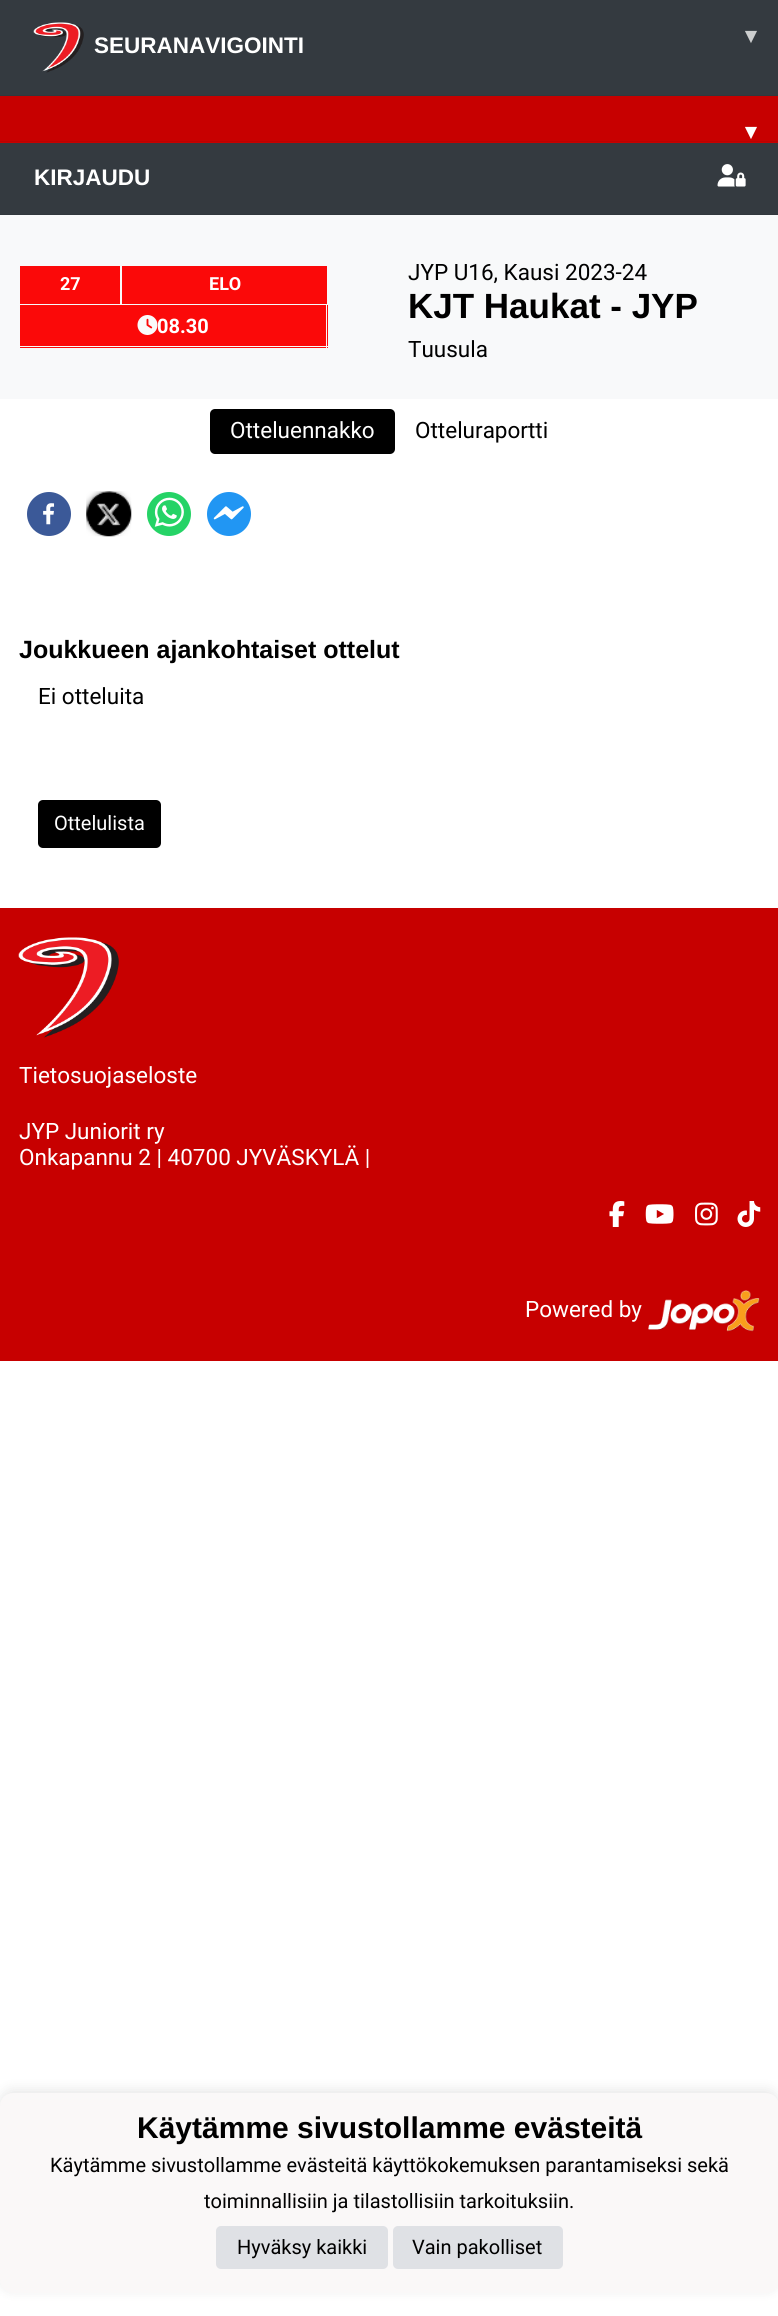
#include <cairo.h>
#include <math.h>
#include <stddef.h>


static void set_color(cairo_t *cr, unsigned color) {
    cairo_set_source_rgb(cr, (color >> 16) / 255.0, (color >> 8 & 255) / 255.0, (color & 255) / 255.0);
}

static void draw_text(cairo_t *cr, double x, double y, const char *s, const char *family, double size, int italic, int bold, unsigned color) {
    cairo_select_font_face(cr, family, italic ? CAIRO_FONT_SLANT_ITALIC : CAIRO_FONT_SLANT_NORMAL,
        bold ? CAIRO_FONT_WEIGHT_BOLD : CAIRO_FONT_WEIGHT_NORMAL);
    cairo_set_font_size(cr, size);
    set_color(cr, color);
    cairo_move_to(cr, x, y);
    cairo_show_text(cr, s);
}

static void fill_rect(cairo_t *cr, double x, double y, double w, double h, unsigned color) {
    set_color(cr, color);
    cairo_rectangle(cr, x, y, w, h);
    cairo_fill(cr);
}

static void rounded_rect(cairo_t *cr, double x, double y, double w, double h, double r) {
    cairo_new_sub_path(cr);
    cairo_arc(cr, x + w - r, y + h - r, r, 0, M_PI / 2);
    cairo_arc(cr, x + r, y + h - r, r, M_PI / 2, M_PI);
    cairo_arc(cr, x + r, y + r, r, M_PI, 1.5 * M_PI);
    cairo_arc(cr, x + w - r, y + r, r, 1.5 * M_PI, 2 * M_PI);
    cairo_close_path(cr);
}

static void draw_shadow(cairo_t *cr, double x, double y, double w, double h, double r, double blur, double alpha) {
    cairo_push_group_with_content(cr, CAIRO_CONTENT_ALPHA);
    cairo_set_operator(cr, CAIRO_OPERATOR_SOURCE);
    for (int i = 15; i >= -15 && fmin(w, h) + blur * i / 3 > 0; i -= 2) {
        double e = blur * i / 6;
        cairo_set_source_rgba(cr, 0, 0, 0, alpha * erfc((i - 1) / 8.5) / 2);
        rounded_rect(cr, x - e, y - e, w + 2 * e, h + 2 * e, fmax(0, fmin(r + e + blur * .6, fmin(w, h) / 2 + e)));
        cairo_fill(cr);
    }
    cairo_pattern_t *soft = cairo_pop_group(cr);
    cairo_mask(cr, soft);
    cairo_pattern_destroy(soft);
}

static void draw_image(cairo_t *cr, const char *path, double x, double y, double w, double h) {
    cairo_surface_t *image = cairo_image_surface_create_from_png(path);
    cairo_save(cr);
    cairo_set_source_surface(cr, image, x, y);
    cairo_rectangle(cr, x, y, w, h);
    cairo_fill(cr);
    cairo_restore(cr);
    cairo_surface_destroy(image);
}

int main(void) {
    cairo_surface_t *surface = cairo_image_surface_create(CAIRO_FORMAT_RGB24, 778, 2316);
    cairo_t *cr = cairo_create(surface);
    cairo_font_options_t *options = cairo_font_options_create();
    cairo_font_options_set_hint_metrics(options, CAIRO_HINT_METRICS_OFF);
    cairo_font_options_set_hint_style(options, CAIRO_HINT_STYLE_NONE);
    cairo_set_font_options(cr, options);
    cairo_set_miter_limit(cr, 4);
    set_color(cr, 0xFFFFFF);
    cairo_paint(cr);
    fill_rect(cr, 0, 0, 778, 95, 0x343A40);
    fill_rect(cr, 0, 95, 778, 1, 0x31373D);
    draw_image(cr, "assets/img1.png", 33, 22, 51, 51);
    draw_text(cr, 94, 53, "SEURANAVIGOINTI", "Liberation Sans", 22.5, 0, 1, 0xFFFFFF);
    draw_text(cr, 745, 43, "▾", "DejaVu Sans", 22.5, 0, 1, 0xCCCECF);
    fill_rect(cr, 0, 96, 778, 47, 0xC70000);
    fill_rect(cr, 0, 141, 778, 1, 0xBD0000);
    draw_text(cr, 745, 139, "▾", "DejaVu Sans", 22.5, 0, 1, 0xFFFFFF);
    fill_rect(cr, 0, 143, 778, 71, 0x343A40);
    fill_rect(cr, 0, 214, 778, 1, 0x31373D);
    draw_text(cr, 34, 185, "KIRJAUDU", "Liberation Sans", 22.5, 0, 1, 0xFFFFFF);
    draw_image(cr, "assets/img2.png", 717, 164, 29, 23);
    fill_rect(cr, 0, 215, 778, 184, 0xF8F9FA);
    fill_rect(cr, 20, 266, 100, 38, 0xFB0909);
    draw_text(cr, 60, 290, "27", "Roboto", 18, 0, 1, 0xFFFFFF);
    fill_rect(cr, 122, 266, 205, 38, 0xFB0909);
    draw_text(cr, 209, 290, "ELO", "Roboto", 18, 0, 1, 0xFFFFFF);
    fill_rect(cr, 20, 305, 308, 43, 0xFB0909);
    fill_rect(cr, 326, 305, 1, 43, 0xFAFAFA);
    fill_rect(cr, 19, 346, 309, 1, 0xFAFAFA);
    draw_image(cr, "assets/img3.png", 137, 315, 21, 20);
    draw_text(cr, 157, 333, "08.30", "Roboto", 20, 0, 1, 0xFFFFFF);
    draw_text(cr, 408, 280, "JYP U16, Kausi 2023-24", "Roboto", 22.5, 0, 0, 0x000000);
    draw_text(cr, 408, 318, "KJT Haukat - JYP", "Liberation Sans", 35, 0, 1, 0x000000);
    draw_text(cr, 408, 357, "Tuusula", "Roboto", 22.5, 0, 0, 0x000000);
    rounded_rect(cr, 210, 409, 185, 45, 5);
    cairo_fill(cr);
    draw_text(cr, 230, 438, "Otteluennakko", "Roboto", 22.5, 0, 0, 0xFFFFFF);
    draw_text(cr, 415, 438, "Otteluraportti", "Roboto", 22.5, 0, 0, 0x000000);
    draw_image(cr, "assets/img4.png", 27, 492, 44, 44);
    draw_image(cr, "assets/img5.png", 86, 491, 46, 46);
    draw_image(cr, "assets/img6.png", 147, 492, 44, 44);
    draw_image(cr, "assets/img7.png", 207, 492, 44, 44);
    draw_text(cr, 19, 658, "Joukkueen ajankohtaiset ottelut", "Liberation Sans", 25, 0, 1, 0x000000);
    draw_text(cr, 38, 704, "Ei otteluita", "Roboto", 22.5, 0, 0, 0x000000);
    rounded_rect(cr, 38, 800, 123, 48, 5);
    cairo_fill(cr);
    draw_text(cr, 54, 830, "Ottelulista", "Roboto", 20, 0, 0, 0xFFFFFF);
    fill_rect(cr, 0, 908, 778, 453, 0xC70000);
    draw_image(cr, "assets/img8.png", 18, 937, 101, 101);
    draw_text(cr, 19, 1083, "Tietosuojaseloste", "Roboto", 22.5, 0, 0, 0xFFFFFF);
    draw_text(cr, 19, 1139, "JYP Juniorit ry", "Roboto", 22.5, 0, 0, 0xFFFFFF);
    draw_text(cr, 19, 1165, "Onkapannu 2 | 40700 JYVÄSKYLÄ |", "Roboto", 22.5, 0, 0, 0xFFFFFF);
    draw_image(cr, "assets/img9.png", 609, 1201, 16, 26);
    draw_image(cr, "assets/img10.png", 645, 1204, 29, 20);
    draw_image(cr, "assets/img11.png", 695, 1202, 23, 24);
    draw_image(cr, "assets/img12.png", 737, 1201, 24, 26);
    draw_text(cr, 525, 1317, "Powered by", "Roboto", 22.5, 0, 0, 0xFFFFFF);
    draw_image(cr, "assets/img13.png", 648, 1290, 112, 42);
    set_color(cr, 0x000000);
    draw_shadow(cr, 0, 2090, 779, 200, 13, 6, 0.1);
    set_color(cr, 0xFAF8F8);
    rounded_rect(cr, 0, 2093, 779, 200, 13);
    cairo_fill(cr);
    draw_text(cr, 137, 2138, "Käytämme sivustollamme evästeitä", "Liberation Sans", 30, 0, 1, 0x000000);
    draw_text(cr, 50, 2172, "Käytämme sivustollamme evästeitä käyttökokemuksen parantamiseksi sekä", "Roboto", 20, 0, 0, 0x000000);
    draw_text(cr, 204, 2208, "toiminnallisiin ja tilastollisiin tarkoituksiin.", "Roboto", 20, 0, 0, 0x000000);
    set_color(cr, 0xDFE1E5);
    rounded_rect(cr, 216, 2226, 172, 43, 5);
    cairo_fill(cr);
    draw_text(cr, 237, 2254, "Hyväksy kaikki", "Roboto", 20, 0, 0, 0x000000);
    set_color(cr, 0xDFE1E5);
    rounded_rect(cr, 393, 2226, 170, 43, 5);
    cairo_fill(cr);
    draw_text(cr, 412, 2254, "Vain pakolliset", "Roboto", 20, 0, 0, 0x000000);
    cairo_surface_write_to_png(surface, "output.png");
    cairo_font_options_destroy(options);
    cairo_destroy(cr);
    cairo_surface_destroy(surface);
    return 0;
}
